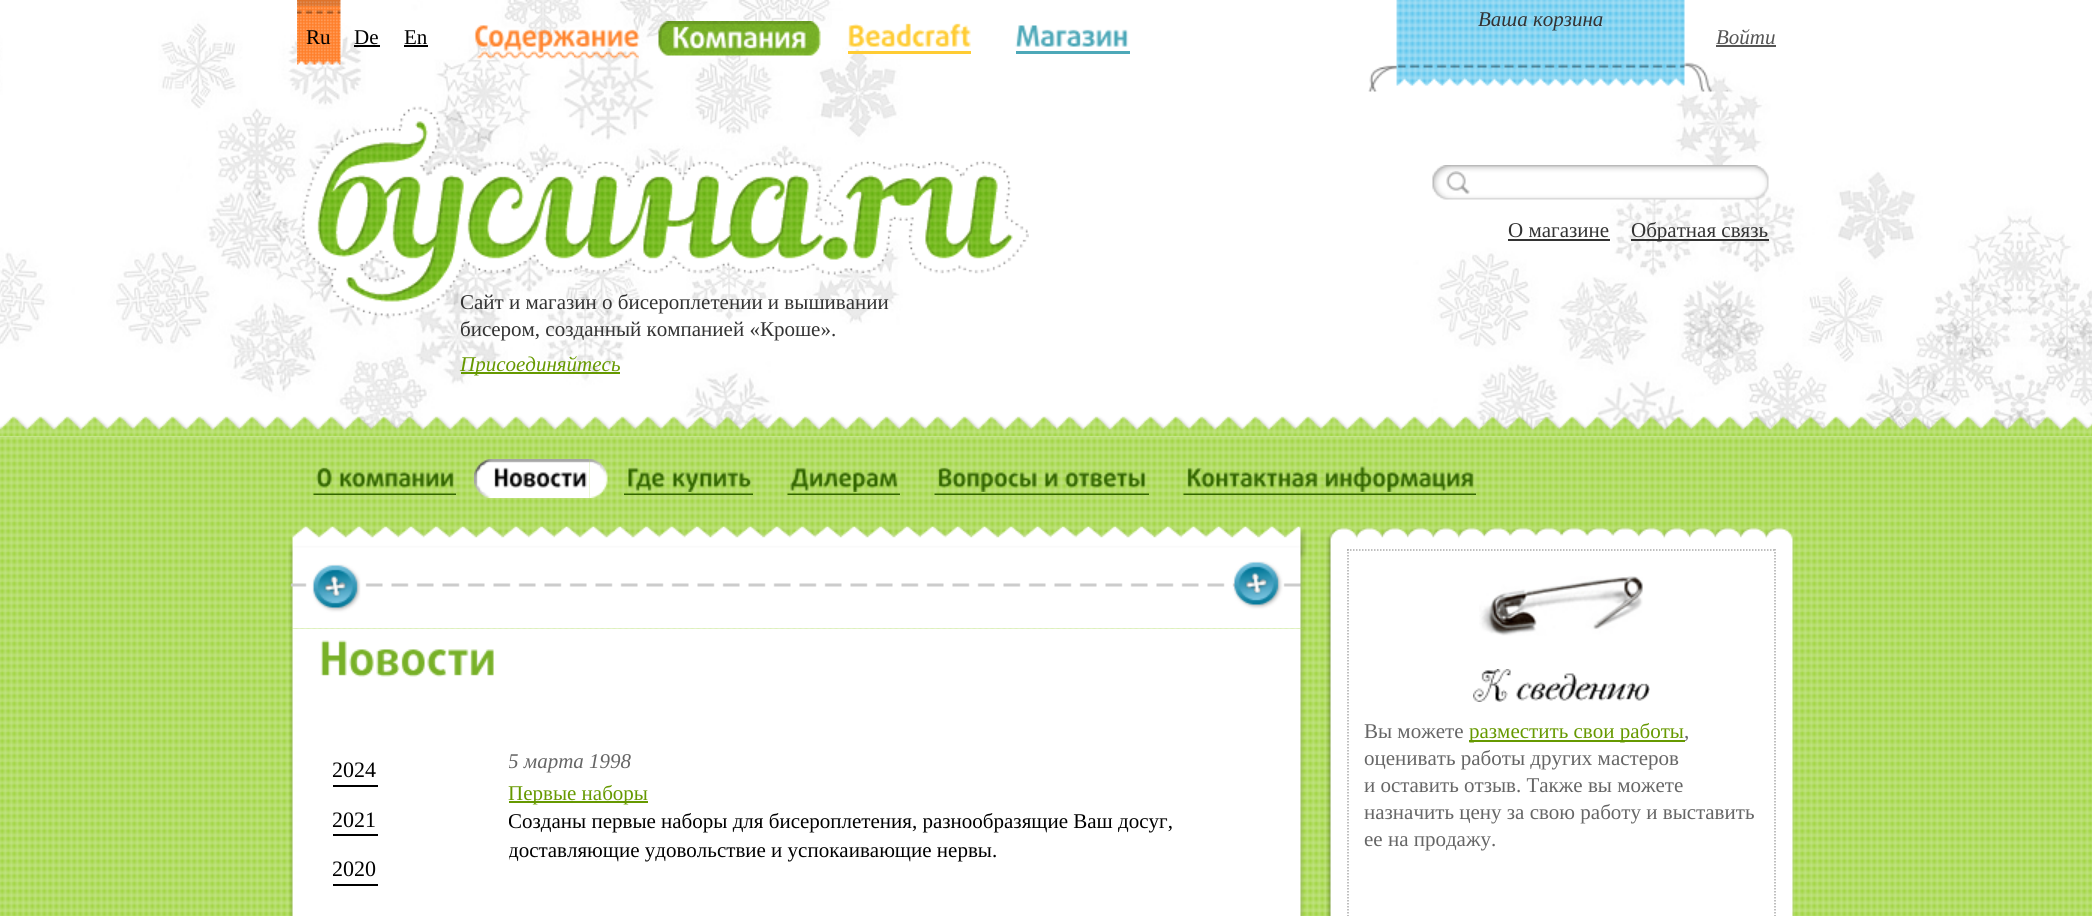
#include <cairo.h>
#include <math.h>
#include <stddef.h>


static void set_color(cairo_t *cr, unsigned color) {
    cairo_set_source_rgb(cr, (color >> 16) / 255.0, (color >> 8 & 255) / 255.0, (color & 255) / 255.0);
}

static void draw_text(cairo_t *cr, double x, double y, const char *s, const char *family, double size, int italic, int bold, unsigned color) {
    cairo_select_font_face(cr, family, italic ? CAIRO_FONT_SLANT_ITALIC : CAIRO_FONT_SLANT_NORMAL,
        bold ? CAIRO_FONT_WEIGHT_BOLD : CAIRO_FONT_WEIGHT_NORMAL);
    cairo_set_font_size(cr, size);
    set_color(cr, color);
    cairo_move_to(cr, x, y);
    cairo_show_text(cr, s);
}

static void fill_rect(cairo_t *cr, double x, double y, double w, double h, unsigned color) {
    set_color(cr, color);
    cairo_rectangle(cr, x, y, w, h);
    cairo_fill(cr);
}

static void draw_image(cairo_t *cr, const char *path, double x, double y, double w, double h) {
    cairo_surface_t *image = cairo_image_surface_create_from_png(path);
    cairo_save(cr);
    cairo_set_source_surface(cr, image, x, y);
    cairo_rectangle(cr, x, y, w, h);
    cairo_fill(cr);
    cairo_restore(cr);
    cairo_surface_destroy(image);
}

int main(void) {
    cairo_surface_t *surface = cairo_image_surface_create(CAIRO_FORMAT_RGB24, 2092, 916);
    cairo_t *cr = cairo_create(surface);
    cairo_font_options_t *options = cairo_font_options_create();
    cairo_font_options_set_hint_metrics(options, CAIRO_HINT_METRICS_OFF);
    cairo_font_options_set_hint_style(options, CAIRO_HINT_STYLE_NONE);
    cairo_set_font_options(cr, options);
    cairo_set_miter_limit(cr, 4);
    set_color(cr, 0xFFFFFF);
    cairo_paint(cr);
    draw_image(cr, "assets/img1.png", 0, 0, 2092, 431);
    draw_image(cr, "assets/img2.png", 297, 0, 44, 65);
    draw_text(cr, 306, 44, "Ru", "Liberation Serif", 21, 0, 0, 0x000000);
    draw_text(cr, 354, 44, "De", "Liberation Serif", 21, 0, 0, 0x000000);
    fill_rect(cr, 354, 45, 26, 2, 0x000000);
    draw_text(cr, 404, 44, "En", "Liberation Serif", 21, 0, 0, 0x000000);
    fill_rect(cr, 404, 45, 24, 2, 0x000000);
    draw_image(cr, "assets/img3.png", 476, 50, 163, 9);
    draw_image(cr, "assets/img4.png", 474, 25, 166, 28);
    draw_image(cr, "assets/img5.png", 658, 21, 163, 35);
    draw_image(cr, "assets/img6.png", 673, 26, 133, 23);
    fill_rect(cr, 848, 51, 123, 3, 0xFFCC33);
    draw_image(cr, "assets/img7.png", 848, 23, 123, 24);
    fill_rect(cr, 1016, 51, 114, 3, 0x4DA8B8);
    draw_image(cr, "assets/img8.png", 1015, 25, 114, 22);
    draw_text(cr, 1716, 44, "Войти", "Liberation Serif", 21, 1, 0, 0x555555);
    fill_rect(cr, 1716, 45, 60, 2, 0x555555);
    draw_image(cr, "assets/img9.png", 1368, 0, 360, 92);
    draw_text(cr, 1478, 26, "Ваша корзина", "Liberation Serif", 21, 1, 0, 0x333333);
    draw_image(cr, "assets/img10.png", 301, 106, 728, 211);
    draw_image(cr, "assets/img11.png", 1432, 165, 337, 35);
    draw_image(cr, "assets/img12.png", 1446, 171, 24, 24);
    draw_text(cr, 1508, 237, "О магазине", "Liberation Serif", 21, 0, 0, 0x333333);
    fill_rect(cr, 1508, 239, 102, 2, 0x333333);
    fill_rect(cr, 1631, 239, 138, 2, 0x333333);
    draw_text(cr, 1631, 237, "Обратная связь", "Liberation Serif", 21, 0, 0, 0x333333);
    draw_text(cr, 460, 309, "Cайт и магазин о бисероплетении и вышивании", "Liberation Serif", 21, 0, 0, 0x333333);
    draw_text(cr, 460, 336, "бисером, созданный компанией «Кроше».", "Liberation Serif", 21, 0, 0, 0x333333);
    fill_rect(cr, 461, 372, 159, 2, 0x669900);
    draw_text(cr, 460, 371, "Присоединяйтесь", "Liberation Serif", 21, 1, 0, 0x669900);
    draw_image(cr, "assets/img13.png", 0, 416, 2092, 21);
    draw_image(cr, "assets/img14.png", 0, 436, 2092, 480);
    draw_image(cr, "assets/img15.png", 313, 493, 143, 2);
    draw_image(cr, "assets/img16.png", 316, 467, 16, 21);
    draw_image(cr, "assets/img17.png", 339, 472, 115, 16);
    draw_image(cr, "assets/img18.png", 474, 459, 116, 39);
    draw_image(cr, "assets/img19.png", 494, 467, 93, 21);
    draw_image(cr, "assets/img20.png", 589, 459, 19, 39);
    draw_image(cr, "assets/img21.png", 624, 493, 129, 2);
    draw_image(cr, "assets/img22.png", 628, 467, 37, 24);
    draw_image(cr, "assets/img23.png", 672, 472, 80, 20);
    draw_image(cr, "assets/img24.png", 787, 493, 113, 2);
    draw_image(cr, "assets/img25.png", 790, 467, 108, 25);
    draw_image(cr, "assets/img26.png", 934, 493, 215, 2);
    draw_image(cr, "assets/img27.png", 938, 467, 99, 25);
    draw_image(cr, "assets/img28.png", 1044, 472, 14, 16);
    draw_image(cr, "assets/img29.png", 1064, 472, 82, 16);
    draw_image(cr, "assets/img30.png", 1183, 493, 293, 2);
    draw_image(cr, "assets/img31.png", 1187, 467, 131, 21);
    draw_image(cr, "assets/img32.png", 1324, 466, 150, 26);
    draw_image(cr, "assets/img34.png", 289, 628, 1015, 288);
    draw_image(cr, "assets/img33.png", 288, 526, 1019, 103);
    draw_image(cr, "assets/img35.png", 320, 640, 174, 37);
    fill_rect(cr, 333, 785, 45, 2, 0x000000);
    draw_text(cr, 332, 777, "2024", "Liberation Serif", 22, 0, 0, 0x000000);
    fill_rect(cr, 333, 834, 45, 2, 0x000000);
    draw_text(cr, 332, 827, "2021", "Liberation Serif", 22, 0, 0, 0x000000);
    fill_rect(cr, 333, 884, 45, 2, 0x000000);
    draw_text(cr, 332, 876, "2020", "Liberation Serif", 22, 0, 0, 0x000000);
    cairo_save(cr);
    cairo_rectangle(cr, 509, 749, 742, 153);
    cairo_clip(cr);
    draw_text(cr, 508, 768, "5 марта 1998", "Liberation Serif", 21, 1, 0, 0x666666);
    cairo_restore(cr);
    fill_rect(cr, 509, 801, 139, 2, 0x669900);
    draw_text(cr, 508, 800, "Первые наборы", "Liberation Serif", 21, 0, 0, 0x669900);
    cairo_save(cr);
    cairo_rectangle(cr, 509, 749, 742, 153);
    cairo_clip(cr);
    draw_text(cr, 508, 828, "Созданы первые наборы для бисероплетения, разнообразящие Ваш досуг,", "Liberation Serif", 21, 0, 0, 0x000000);
    draw_text(cr, 508, 857, "доставляющие удовольствие и успокаивающие нервы.", "Liberation Serif", 21, 0, 0, 0x000000);
    cairo_restore(cr);
    draw_image(cr, "assets/img36.png", 1326, 527, 468, 22);
    draw_image(cr, "assets/img37.png", 1326, 549, 468, 367);
    cairo_new_path(cr);
    cairo_move_to(cr, 1347, 550);
    cairo_line_to(cr, 1776, 550);
    set_color(cr, 0xAAAAAA);
    cairo_set_line_width(cr, 1.5);
    cairo_set_dash(cr, (double[]){1.5, 1.5}, 2, 0);
    cairo_stroke(cr);
    cairo_new_path(cr);
    cairo_move_to(cr, 1775, 549);
    cairo_line_to(cr, 1775, 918);
    cairo_stroke(cr);
    cairo_new_path(cr);
    cairo_move_to(cr, 1348, 549);
    cairo_line_to(cr, 1348, 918);
    cairo_stroke(cr);
    draw_image(cr, "assets/img38.png", 1479, 576, 164, 60);
    draw_image(cr, "assets/img39.png", 1473, 669, 177, 33);
    draw_text(cr, 1364, 738, "Вы можете", "Liberation Serif", 21, 0, 0, 0x666666);
    fill_rect(cr, 1469, 740, 216, 2, 0x669900);
    draw_text(cr, 1469, 738, "разместить свои работы", "Liberation Serif", 21, 0, 0, 0x669900);
    draw_text(cr, 1684, 738, ",", "Liberation Serif", 21, 0, 0, 0x666666);
    draw_text(cr, 1364, 765, "оценивать работы других мастеров", "Liberation Serif", 21, 0, 0, 0x666666);
    draw_text(cr, 1364, 792, "и оставить отзыв. Также вы можете", "Liberation Serif", 21, 0, 0, 0x666666);
    draw_text(cr, 1364, 819, "назначить цену за свою работу и выставить", "Liberation Serif", 21, 0, 0, 0x666666);
    draw_text(cr, 1364, 846, "ее на продажу.", "Liberation Serif", 21, 0, 0, 0x666666);
    cairo_surface_write_to_png(surface, "output.png");
    cairo_font_options_destroy(options);
    cairo_destroy(cr);
    cairo_surface_destroy(surface);
    return 0;
}
